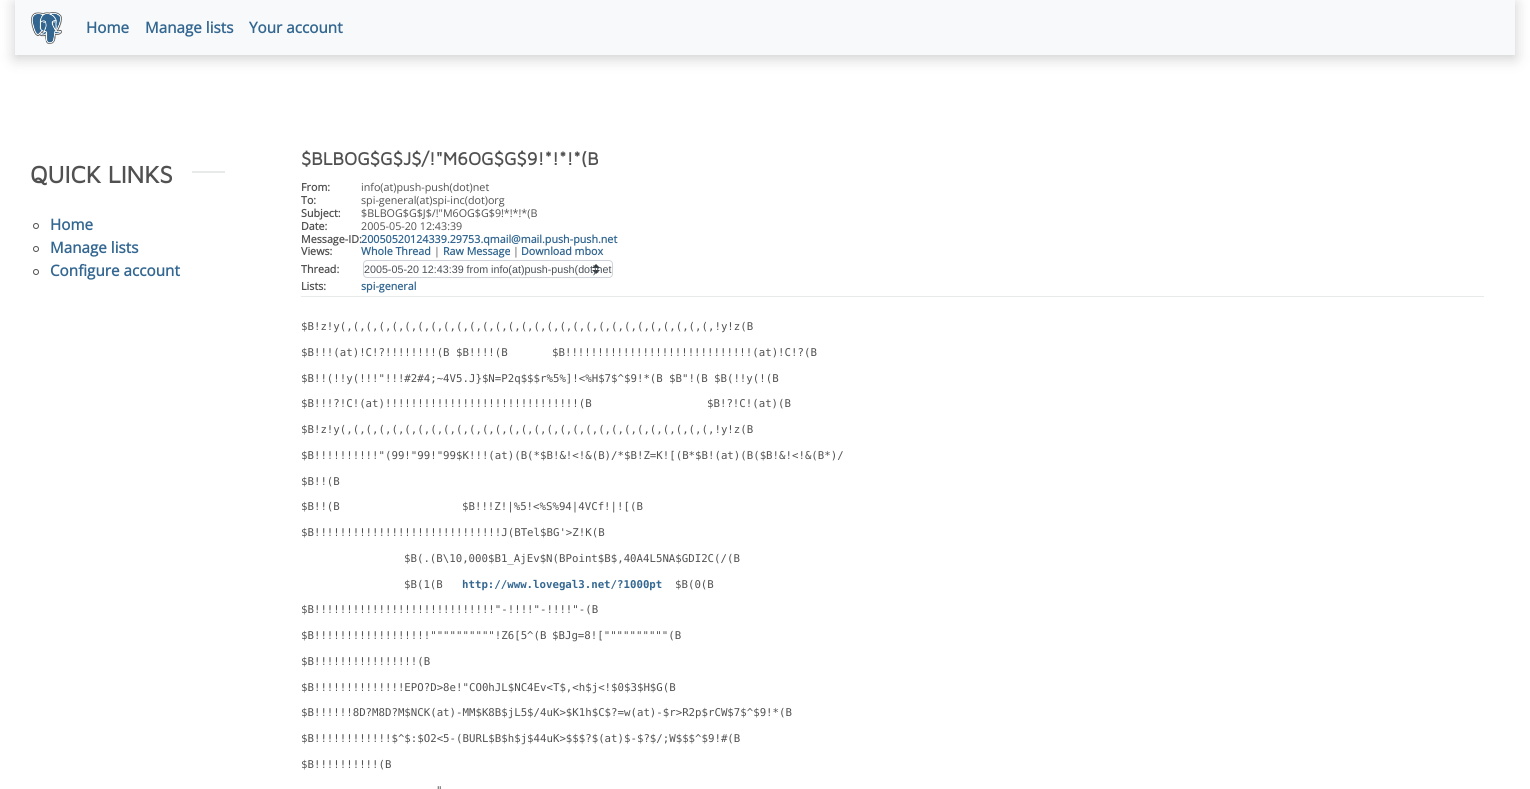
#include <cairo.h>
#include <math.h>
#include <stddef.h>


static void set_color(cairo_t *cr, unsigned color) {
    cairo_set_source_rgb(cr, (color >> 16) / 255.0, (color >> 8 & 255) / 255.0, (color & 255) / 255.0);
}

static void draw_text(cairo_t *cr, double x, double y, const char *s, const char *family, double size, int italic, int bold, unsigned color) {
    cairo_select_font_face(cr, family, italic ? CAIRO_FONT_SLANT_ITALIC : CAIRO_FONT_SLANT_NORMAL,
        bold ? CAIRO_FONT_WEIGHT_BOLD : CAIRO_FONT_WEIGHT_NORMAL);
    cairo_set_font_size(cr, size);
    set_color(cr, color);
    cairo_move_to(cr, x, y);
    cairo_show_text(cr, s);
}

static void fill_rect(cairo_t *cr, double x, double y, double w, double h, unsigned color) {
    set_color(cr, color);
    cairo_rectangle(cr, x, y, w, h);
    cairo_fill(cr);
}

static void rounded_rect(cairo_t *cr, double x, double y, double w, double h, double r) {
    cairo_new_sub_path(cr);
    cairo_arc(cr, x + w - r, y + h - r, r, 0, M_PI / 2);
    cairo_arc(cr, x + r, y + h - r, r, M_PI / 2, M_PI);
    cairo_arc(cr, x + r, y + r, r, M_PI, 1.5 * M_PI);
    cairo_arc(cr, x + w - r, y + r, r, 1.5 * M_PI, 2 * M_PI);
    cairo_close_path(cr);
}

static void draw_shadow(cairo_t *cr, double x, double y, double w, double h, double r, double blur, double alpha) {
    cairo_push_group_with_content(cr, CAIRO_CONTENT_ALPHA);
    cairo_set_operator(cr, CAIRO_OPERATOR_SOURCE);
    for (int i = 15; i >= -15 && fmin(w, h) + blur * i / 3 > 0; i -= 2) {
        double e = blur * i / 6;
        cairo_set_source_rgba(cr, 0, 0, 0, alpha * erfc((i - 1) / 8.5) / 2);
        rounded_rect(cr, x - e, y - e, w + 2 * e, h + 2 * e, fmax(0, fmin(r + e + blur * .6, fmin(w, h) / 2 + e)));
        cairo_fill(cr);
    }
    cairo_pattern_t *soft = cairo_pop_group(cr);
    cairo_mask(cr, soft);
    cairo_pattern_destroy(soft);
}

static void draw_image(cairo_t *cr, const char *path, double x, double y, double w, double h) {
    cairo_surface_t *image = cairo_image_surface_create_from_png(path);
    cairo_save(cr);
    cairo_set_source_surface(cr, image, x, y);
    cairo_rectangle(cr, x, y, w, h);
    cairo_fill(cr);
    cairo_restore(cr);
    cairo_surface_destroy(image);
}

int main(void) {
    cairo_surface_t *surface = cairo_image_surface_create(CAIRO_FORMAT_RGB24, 1530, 789);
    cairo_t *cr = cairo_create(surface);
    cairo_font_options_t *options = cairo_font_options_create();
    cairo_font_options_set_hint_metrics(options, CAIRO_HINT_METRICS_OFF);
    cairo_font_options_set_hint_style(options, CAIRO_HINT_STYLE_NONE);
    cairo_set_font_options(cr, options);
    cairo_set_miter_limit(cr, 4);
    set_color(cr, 0xFFFFFF);
    cairo_paint(cr);
    set_color(cr, 0x000000);
    draw_shadow(cr, 15, 3, 1500, 55, 0, 7.5, 0.2);
    fill_rect(cr, 15, 0, 1500, 55, 0xF8F9FA);
    draw_image(cr, "assets/img1.png", 31, 12, 31, 32);
    draw_text(cr, 86, 33, "Home", "Open Sans", 15.25, 0, 1, 0x336791);
    draw_text(cr, 145, 33, "Manage lists", "Open Sans", 15.25, 0, 1, 0x336791);
    draw_text(cr, 249, 33, "Your account", "Open Sans", 15.25, 0, 1, 0x336791);
    draw_text(cr, 30, 183, "QUICK LINKS", "Maven Pro", 24.5, 0, 1, 0x515151);
    fill_rect(cr, 192, 171, 33, 2, 0xE7EAE8);
    cairo_new_path(cr);
    cairo_arc(cr, 36, 226, 2.5, 0, 2 * M_PI);
    set_color(cr, 0x515151);
    cairo_set_line_width(cr, 1);
    cairo_stroke(cr);
    draw_text(cr, 50, 230, "Home", "Open Sans", 15.25, 0, 1, 0x336791);
    cairo_new_path(cr);
    cairo_arc(cr, 36, 249, 2.5, 0, 2 * M_PI);
    set_color(cr, 0x515151);
    cairo_stroke(cr);
    draw_text(cr, 50, 253, "Manage lists", "Open Sans", 15.25, 0, 1, 0x336791);
    cairo_new_path(cr);
    cairo_arc(cr, 36, 272, 2.5, 0, 2 * M_PI);
    set_color(cr, 0x515151);
    cairo_stroke(cr);
    draw_text(cr, 50, 276, "Configure account", "Open Sans", 15.25, 0, 1, 0x336791);
    draw_text(cr, 301, 165, "$BLBOG$G$J$/!\"M6OG$G$9!*!*!*(B", "Maven Pro", 18.4, 0, 1, 0x515151);
    fill_rect(cr, 301, 296, 1183, 1, 0xE7EAE8);
    draw_text(cr, 301, 191, "From:", "Open Sans", 10.73, 0, 1, 0x515151);
    draw_text(cr, 361, 191, "info(at)push-push(dot)net", "Open Sans", 10.73, 0, 0, 0x515151);
    draw_text(cr, 301, 204, "To:", "Open Sans", 10.73, 0, 1, 0x515151);
    draw_text(cr, 361, 204, "spi-general(at)spi-inc(dot)org", "Open Sans", 10.73, 0, 0, 0x515151);
    draw_text(cr, 301, 217, "Subject:", "Open Sans", 10.73, 0, 1, 0x515151);
    draw_text(cr, 361, 217, "$BLBOG$G$J$/!\"M6OG$G$9!*!*!*(B", "Open Sans", 10.73, 0, 0, 0x515151);
    draw_text(cr, 301, 230, "Date:", "Open Sans", 10.73, 0, 1, 0x515151);
    draw_text(cr, 361, 230, "2005-05-20 12:43:39", "Open Sans", 10.73, 0, 0, 0x515151);
    draw_text(cr, 301, 243, "Message-ID:", "Open Sans", 10.73, 0, 1, 0x515151);
    draw_text(cr, 361, 243, "20050520124339.29753.qmail@mail.push-push.net", "Open Sans", 10.73, 0, 1, 0x336791);
    draw_text(cr, 301, 255, "Views:", "Open Sans", 10.73, 0, 1, 0x515151);
    draw_text(cr, 361, 255, "Whole Thread", "Open Sans", 10.73, 0, 1, 0x336791);
    draw_text(cr, 434, 255, "|", "Open Sans", 10.73, 0, 0, 0x515151);
    draw_text(cr, 443, 255, "Raw Message", "Open Sans", 10.73, 0, 1, 0x336791);
    draw_text(cr, 513, 255, "|", "Open Sans", 10.73, 0, 0, 0x515151);
    draw_text(cr, 521, 255, "Download mbox", "Open Sans", 10.73, 0, 1, 0x336791);
    draw_text(cr, 301, 273, "Thread:", "Open Sans", 10.73, 0, 1, 0x515151);
    draw_image(cr, "assets/img2.png", 592, 264, 8, 10);
    rounded_rect(cr, 363.5, 260.5, 249, 17, 3.5);
    set_color(cr, 0xCED4DA);
    cairo_stroke(cr);
    draw_text(cr, 364, 273, "2005-05-20 12:43:39 from info(at)push-push(dot)net", "Liberation Sans", 10.73, 0, 0, 0x495057);
    draw_text(cr, 301, 290, "Lists:", "Open Sans", 10.73, 0, 1, 0x515151);
    draw_text(cr, 361, 290, "spi-general", "Open Sans", 10.73, 0, 1, 0x336791);
    draw_text(cr, 301, 330, "$B!z!y(,(,(,(,(,(,(,(,(,(,(,(,(,(,(,(,(,(,(,(,(,(,(,(,(,(,(,(,(,!y!z(B", "DejaVu Sans Mono", 10.73, 0, 0, 0x515151);
    draw_text(cr, 301, 356, "$B!!!(at)!C!?!!!!!!!!(B $B!!!!(B", "DejaVu Sans Mono", 10.73, 0, 0, 0x515151);
    draw_text(cr, 552, 356, "$B!!!!!!!!!!!!!!!!!!!!!!!!!!!!!(at)!C!?(B", "DejaVu Sans Mono", 10.73, 0, 0, 0x515151);
    draw_text(cr, 301, 382, "$B!!(!!y(!!!\"!!!#2#4;~4V5.J}$N=P2q$$$r%5%]!<%H$7$^$9!*(B", "DejaVu Sans Mono", 10.73, 0, 0, 0x515151);
    draw_text(cr, 669, 382, "$B\"!(B", "DejaVu Sans Mono", 10.73, 0, 0, 0x515151);
    draw_text(cr, 714, 382, "$B(!!y(!(B", "DejaVu Sans Mono", 10.73, 0, 0, 0x515151);
    draw_text(cr, 301, 407, "$B!!!?!C!(at)!!!!!!!!!!!!!!!!!!!!!!!!!!!!!!(B", "DejaVu Sans Mono", 10.73, 0, 0, 0x515151);
    draw_text(cr, 707, 407, "$B!?!C!(at)(B", "DejaVu Sans Mono", 10.73, 0, 0, 0x515151);
    draw_text(cr, 301, 433, "$B!z!y(,(,(,(,(,(,(,(,(,(,(,(,(,(,(,(,(,(,(,(,(,(,(,(,(,(,(,(,(,!y!z(B", "DejaVu Sans Mono", 10.73, 0, 0, 0x515151);
    draw_text(cr, 301, 459, "$B!!!!!!!!!!\"(99!\"99!\"99$K!!!(at)(B(*$B!&!<!&(B)/*$B!Z=K![(B*$B!(at)(B($B!&!<!&(B*)/", "DejaVu Sans Mono", 10.73, 0, 0, 0x515151);
    draw_text(cr, 301, 485, "$B!!(B", "DejaVu Sans Mono", 10.73, 0, 0, 0x515151);
    draw_text(cr, 301, 510, "$B!!(B", "DejaVu Sans Mono", 10.73, 0, 0, 0x515151);
    draw_text(cr, 462, 510, "$B!!!Z!|%5!<%S%94|4VCf!|![(B", "DejaVu Sans Mono", 10.73, 0, 0, 0x515151);
    draw_text(cr, 301, 536, "$B!!!!!!!!!!!!!!!!!!!!!!!!!!!!!J(BTel$BG'>Z!K(B", "DejaVu Sans Mono", 10.73, 0, 0, 0x515151);
    draw_text(cr, 404, 562, "$B(.(B\\10,000$B1_AjEv$N(BPoint$B$,40A4L5NA$GDI2C(/(B", "DejaVu Sans Mono", 10.73, 0, 0, 0x515151);
    draw_text(cr, 404, 588, "$B(1(B", "DejaVu Sans Mono", 10.73, 0, 0, 0x515151);
    draw_text(cr, 462, 588, "http://www.lovegal3.net/?1000pt", "DejaVu Sans Mono", 10.73, 0, 1, 0x336791);
    draw_text(cr, 675, 588, "$B(0(B", "DejaVu Sans Mono", 10.73, 0, 0, 0x515151);
    draw_text(cr, 301, 613, "$B!!!!!!!!!!!!!!!!!!!!!!!!!!!!\"-!!!!\"-!!!!\"-(B", "DejaVu Sans Mono", 10.73, 0, 0, 0x515151);
    draw_text(cr, 301, 639, "$B!!!!!!!!!!!!!!!!!!\"\"\"\"\"\"\"\"\"\"!Z6[5^(B", "DejaVu Sans Mono", 10.73, 0, 0, 0x515151);
    draw_text(cr, 552, 639, "$BJg=8![\"\"\"\"\"\"\"\"\"\"(B", "DejaVu Sans Mono", 10.73, 0, 0, 0x515151);
    draw_text(cr, 301, 665, "$B!!!!!!!!!!!!!!!!(B", "DejaVu Sans Mono", 10.73, 0, 0, 0x515151);
    draw_text(cr, 301, 691, "$B!!!!!!!!!!!!!!EPO?D>8e!\"CO0hJL$NC4Ev<T$,<h$j<!$0$3$H$G(B", "DejaVu Sans Mono", 10.73, 0, 0, 0x515151);
    draw_text(cr, 301, 716, "$B!!!!!!8D?M8D?M$NCK(at)-MM$K8B$jL5$/4uK>$K1h$C$?=w(at)-$r>R2p$rCW$7$^$9!*(B", "DejaVu Sans Mono", 10.73, 0, 0, 0x515151);
    draw_text(cr, 301, 742, "$B!!!!!!!!!!!!$^$:$O2<5-(BURL$B$h$j$44uK>$$$?$(at)$-$?$/;W$$$^$9!#(B", "DejaVu Sans Mono", 10.73, 0, 0, 0x515151);
    draw_text(cr, 301, 768, "$B!!!!!!!!!!(B", "DejaVu Sans Mono", 10.73, 0, 0, 0x515151);
    draw_text(cr, 436, 794, "\"", "DejaVu Sans Mono", 10.73, 0, 0, 0x515151);
    cairo_surface_write_to_png(surface, "output.png");
    cairo_font_options_destroy(options);
    cairo_destroy(cr);
    cairo_surface_destroy(surface);
    return 0;
}
